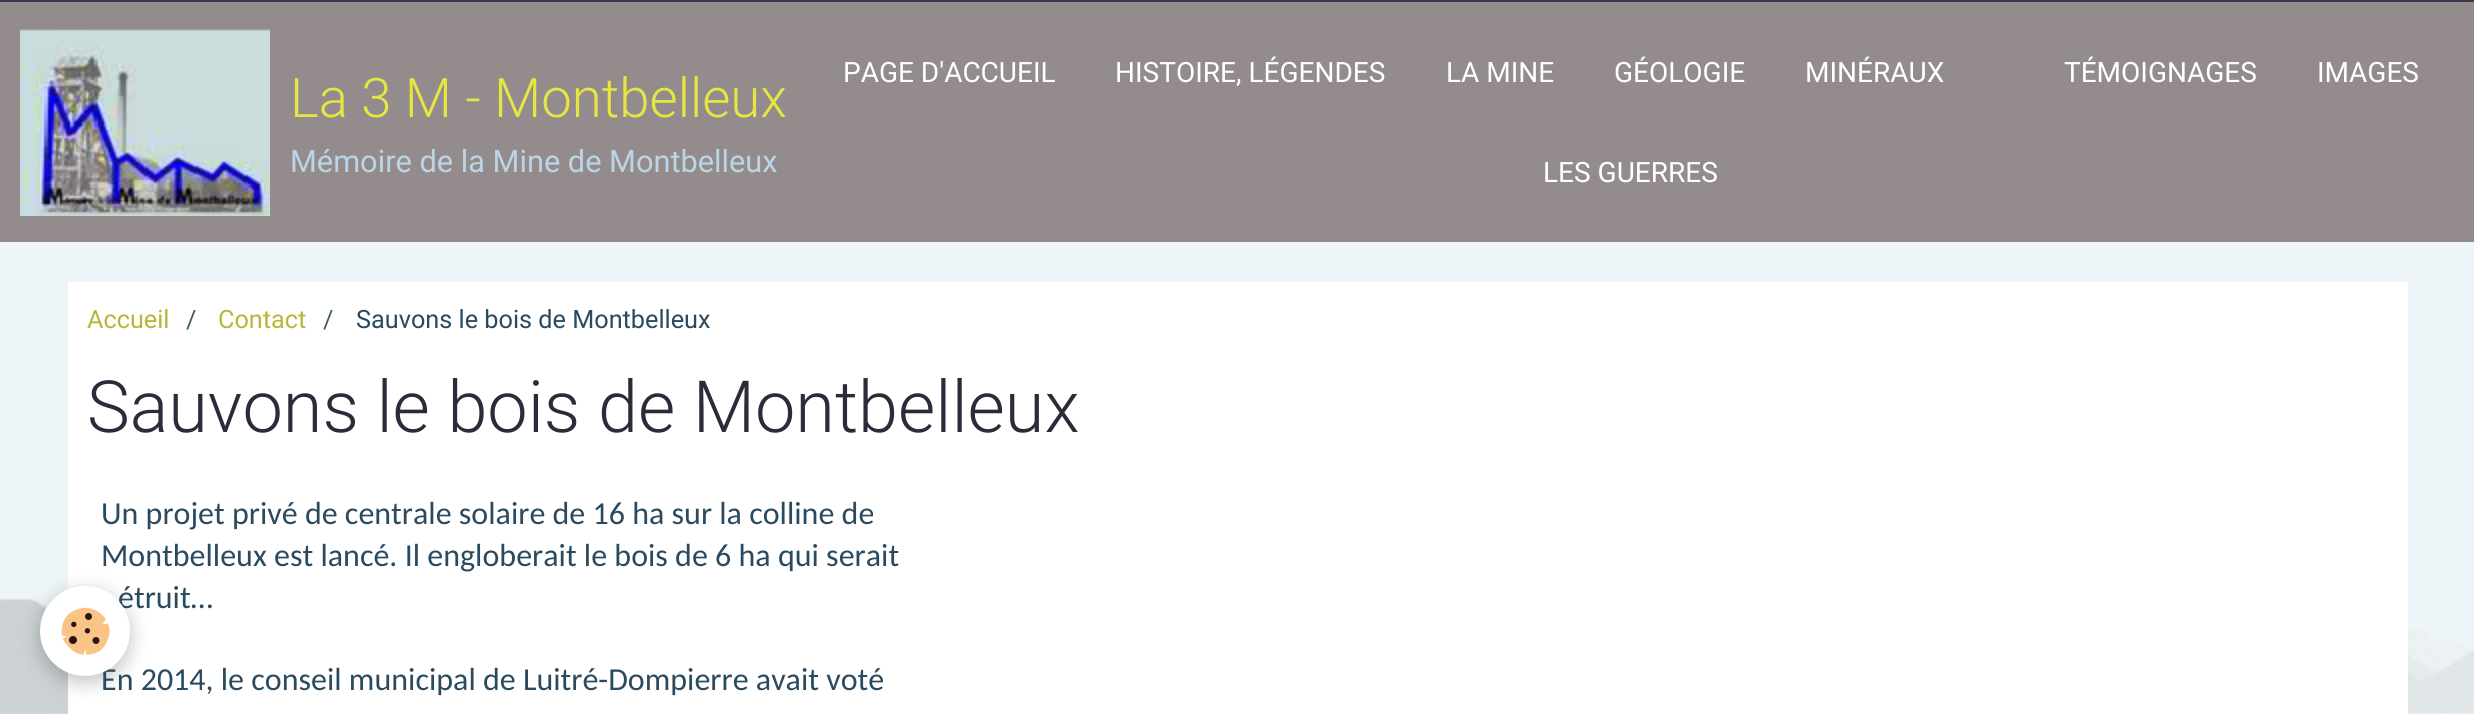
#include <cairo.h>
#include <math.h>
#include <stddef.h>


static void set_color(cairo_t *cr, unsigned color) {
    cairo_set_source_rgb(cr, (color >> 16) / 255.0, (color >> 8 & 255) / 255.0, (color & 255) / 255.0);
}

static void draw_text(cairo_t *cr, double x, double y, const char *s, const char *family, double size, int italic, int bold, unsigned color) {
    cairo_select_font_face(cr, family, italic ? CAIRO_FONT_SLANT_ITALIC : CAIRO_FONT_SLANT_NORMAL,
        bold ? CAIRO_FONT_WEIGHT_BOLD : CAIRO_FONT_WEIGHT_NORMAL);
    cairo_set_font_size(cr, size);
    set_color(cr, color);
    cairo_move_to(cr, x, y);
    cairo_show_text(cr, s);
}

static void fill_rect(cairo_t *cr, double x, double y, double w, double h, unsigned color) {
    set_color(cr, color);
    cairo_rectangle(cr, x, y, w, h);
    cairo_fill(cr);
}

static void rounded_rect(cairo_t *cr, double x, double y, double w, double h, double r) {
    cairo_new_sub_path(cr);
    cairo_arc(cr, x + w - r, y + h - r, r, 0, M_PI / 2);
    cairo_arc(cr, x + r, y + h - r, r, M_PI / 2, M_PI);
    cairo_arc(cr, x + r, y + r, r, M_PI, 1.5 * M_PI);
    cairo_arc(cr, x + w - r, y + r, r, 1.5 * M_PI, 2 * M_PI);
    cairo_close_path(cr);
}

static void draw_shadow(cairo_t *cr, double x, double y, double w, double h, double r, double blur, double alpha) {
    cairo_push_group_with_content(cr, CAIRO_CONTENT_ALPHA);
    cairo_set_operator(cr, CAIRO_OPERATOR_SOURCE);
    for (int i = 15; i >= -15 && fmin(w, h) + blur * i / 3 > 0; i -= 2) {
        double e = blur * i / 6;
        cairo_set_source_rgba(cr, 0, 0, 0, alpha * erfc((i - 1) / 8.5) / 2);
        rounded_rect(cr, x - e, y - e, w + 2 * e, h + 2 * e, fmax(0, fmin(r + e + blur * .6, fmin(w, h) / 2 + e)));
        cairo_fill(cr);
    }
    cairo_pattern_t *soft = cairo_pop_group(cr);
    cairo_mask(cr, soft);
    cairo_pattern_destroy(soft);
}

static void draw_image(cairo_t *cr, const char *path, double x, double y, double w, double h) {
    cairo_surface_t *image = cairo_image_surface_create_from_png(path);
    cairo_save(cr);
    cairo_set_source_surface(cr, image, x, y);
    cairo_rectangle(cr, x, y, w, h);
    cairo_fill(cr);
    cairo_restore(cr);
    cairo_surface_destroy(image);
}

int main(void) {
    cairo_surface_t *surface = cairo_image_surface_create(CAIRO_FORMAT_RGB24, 2474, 714);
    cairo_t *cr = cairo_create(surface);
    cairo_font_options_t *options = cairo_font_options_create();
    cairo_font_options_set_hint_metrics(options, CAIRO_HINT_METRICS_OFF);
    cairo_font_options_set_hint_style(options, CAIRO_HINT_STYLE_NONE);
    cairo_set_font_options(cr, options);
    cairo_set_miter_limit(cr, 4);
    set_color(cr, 0xEEF5F8);
    cairo_paint(cr);
    draw_image(cr, "assets/img1.png", 0, 598, 2474, 116);
    fill_rect(cr, 0, 2, 2474, 240, 0x948C8C);
    fill_rect(cr, 0, 0, 2474, 2, 0x38384C);
    draw_image(cr, "assets/img2.png", 20, 29, 250, 187);
    draw_text(cr, 290, 117, "La 3 M - Montbelleux", "Roboto Light", 54.5, 0, 0, 0xE5E642);
    draw_text(cr, 290, 172, "Mémoire de la Mine de Montbelleux", "Roboto", 30.75, 0, 0, 0xBBD5E6);
    draw_text(cr, 843, 82, "PAGE D'ACCUEIL", "Roboto", 28, 0, 0, 0xFFFFFF);
    draw_text(cr, 1115, 82, "HISTOIRE, LÉGENDES", "Roboto", 28, 0, 0, 0xFFFFFF);
    draw_text(cr, 1446, 82, "LA MINE", "Roboto", 28, 0, 0, 0xFFFFFF);
    draw_text(cr, 1614, 82, "GÉOLOGIE", "Roboto", 28, 0, 0, 0xFFFFFF);
    draw_text(cr, 1805, 82, "MINÉRAUX", "Roboto", 28, 0, 0, 0xFFFFFF);
    draw_text(cr, 2064, 82, "TÉMOIGNAGES", "Roboto", 28, 0, 0, 0xFFFFFF);
    draw_text(cr, 2317, 82, "IMAGES", "Roboto", 28, 0, 0, 0xFFFFFF);
    draw_text(cr, 1543, 182, "LES GUERRES", "Roboto", 28, 0, 0, 0xFFFFFF);
    fill_rect(cr, 68, 282, 2340, 432, 0xFFFFFF);
    set_color(cr, 0x000000);
    draw_shadow(cr, 40, 592, 90, 90, 45, 10, 0.24);
    draw_text(cr, 118, 608, "étruit…", "Carlito", 32, 0, 0, 0x2A4A60);
    draw_text(cr, 101, 690, "En 2014, le conseil municipal de Luitré-Dompierre avait voté", "Carlito", 32, 0, 0, 0x2A4A60);
    set_color(cr, 0xFFFFFF);
    cairo_new_path(cr);
    cairo_arc(cr, 85, 631, 45, 0, 2 * M_PI);
    cairo_fill(cr);
    draw_image(cr, "assets/img3.png", 61, 607, 49, 48);
    draw_text(cr, 87, 328, "Accueil", "Roboto", 25.25, 0, 0, 0xB6B738);
    draw_text(cr, 186, 328, "/", "Roboto", 25.25, 0, 0, 0x3F5C70);
    draw_text(cr, 218, 328, "Contact", "Roboto", 25.25, 0, 0, 0xB6B738);
    draw_text(cr, 323, 328, "/", "Roboto", 25.25, 0, 0, 0x3F5C70);
    draw_text(cr, 356, 328, "Sauvons le bois de Montbelleux", "Roboto", 25.25, 0, 0, 0x2A4A60);
    draw_text(cr, 87, 432, "Sauvons le bois de Montbelleux", "Roboto Light", 72, 0, 0, 0x2B2B3A);
    draw_text(cr, 101, 524, "Un projet privé de centrale solaire de 16 ha sur la colline de", "Carlito", 32, 0, 0, 0x2A4A60);
    draw_text(cr, 101, 566, "Montbelleux est lancé. Il engloberait le bois de 6 ha qui serait", "Carlito", 32, 0, 0, 0x2A4A60);
    cairo_surface_write_to_png(surface, "output.png");
    cairo_font_options_destroy(options);
    cairo_destroy(cr);
    cairo_surface_destroy(surface);
    return 0;
}
